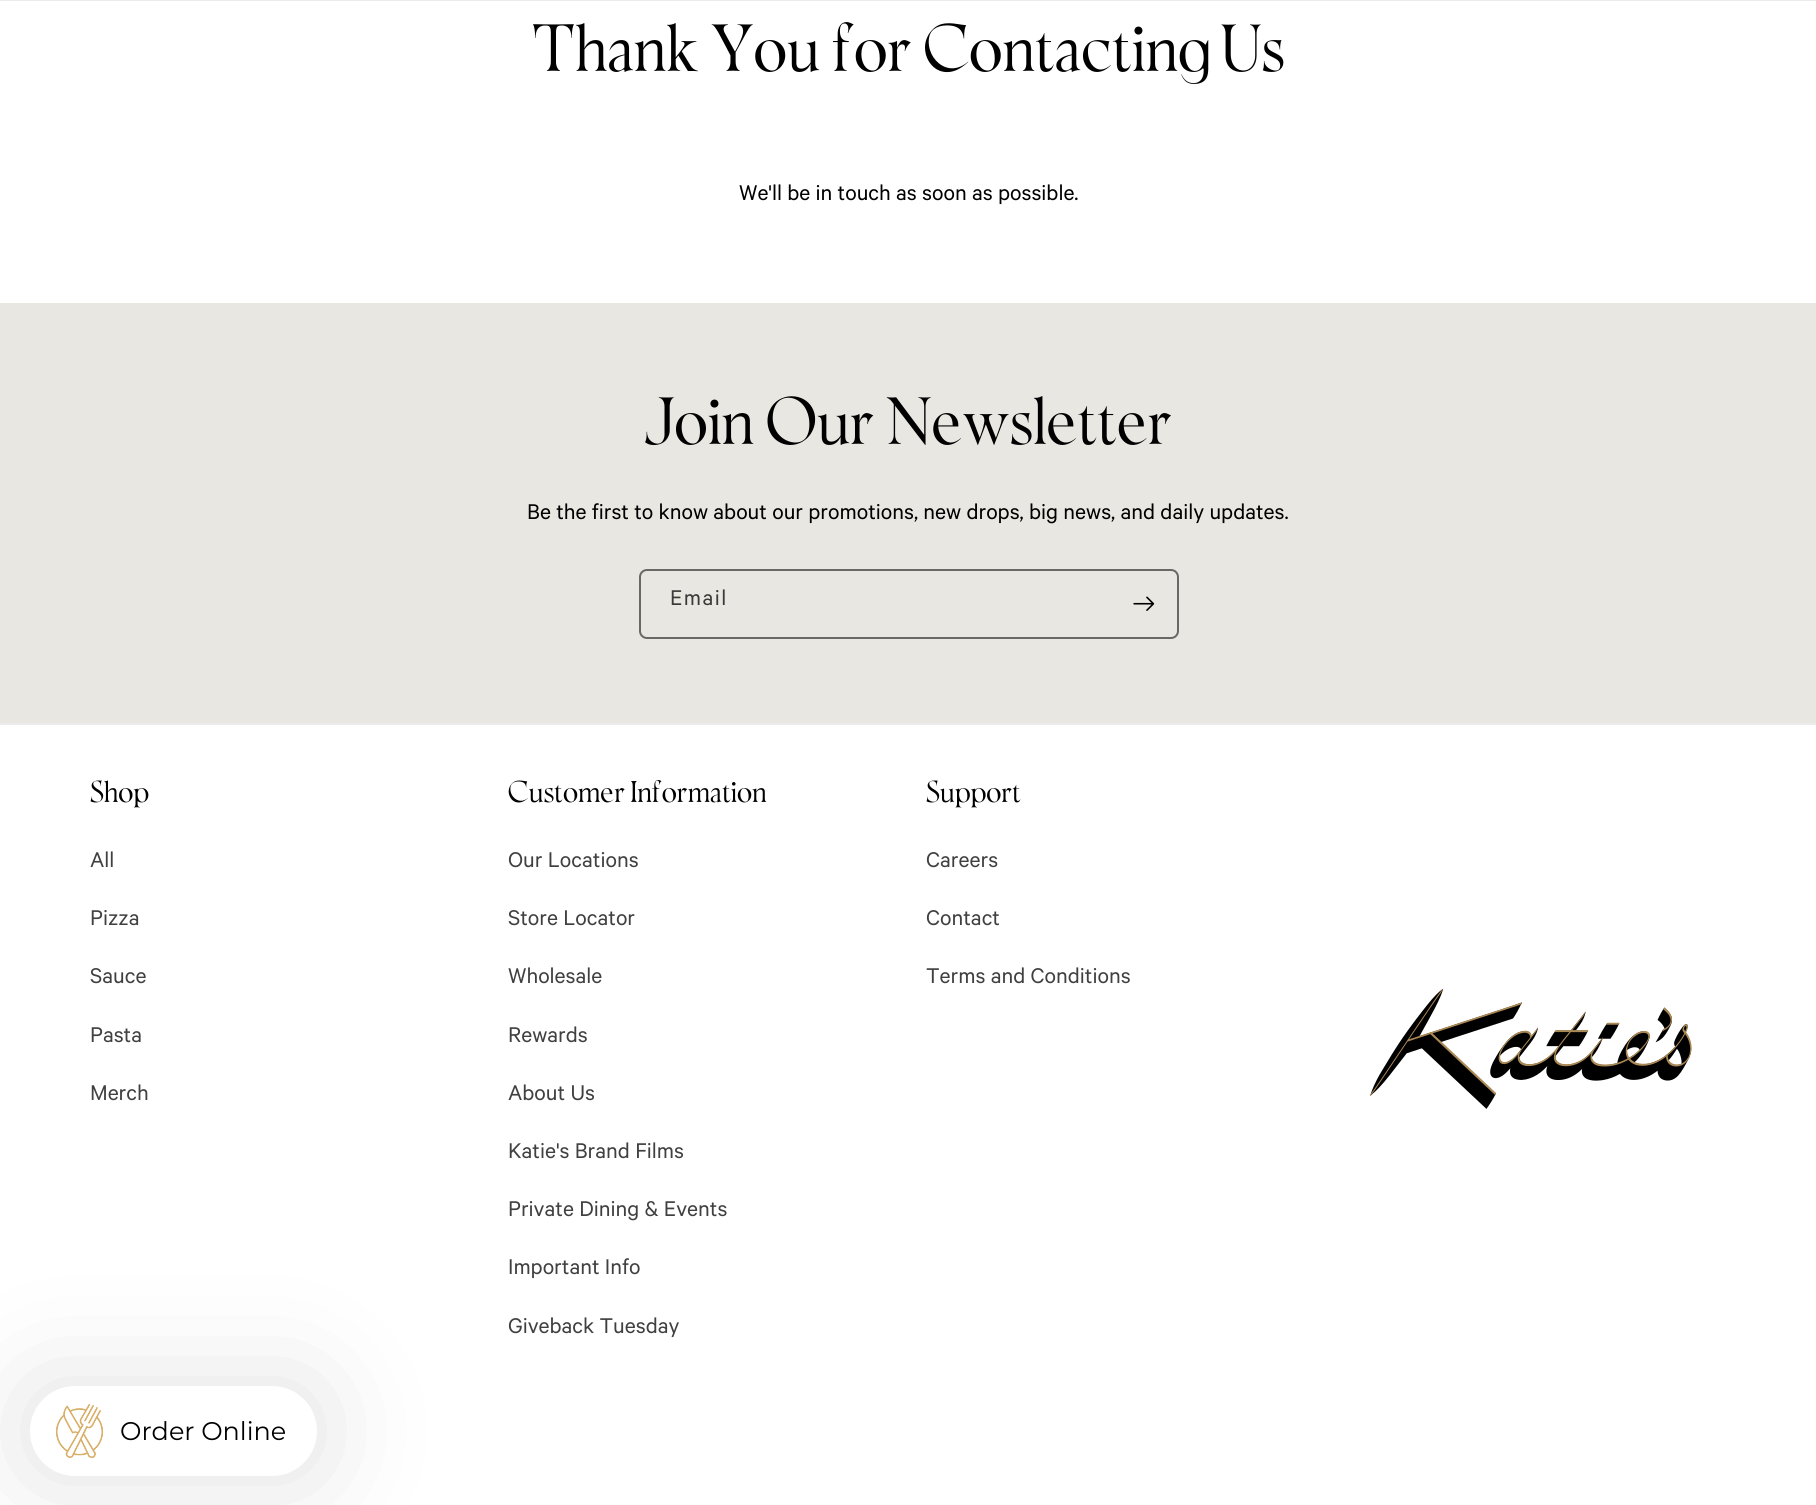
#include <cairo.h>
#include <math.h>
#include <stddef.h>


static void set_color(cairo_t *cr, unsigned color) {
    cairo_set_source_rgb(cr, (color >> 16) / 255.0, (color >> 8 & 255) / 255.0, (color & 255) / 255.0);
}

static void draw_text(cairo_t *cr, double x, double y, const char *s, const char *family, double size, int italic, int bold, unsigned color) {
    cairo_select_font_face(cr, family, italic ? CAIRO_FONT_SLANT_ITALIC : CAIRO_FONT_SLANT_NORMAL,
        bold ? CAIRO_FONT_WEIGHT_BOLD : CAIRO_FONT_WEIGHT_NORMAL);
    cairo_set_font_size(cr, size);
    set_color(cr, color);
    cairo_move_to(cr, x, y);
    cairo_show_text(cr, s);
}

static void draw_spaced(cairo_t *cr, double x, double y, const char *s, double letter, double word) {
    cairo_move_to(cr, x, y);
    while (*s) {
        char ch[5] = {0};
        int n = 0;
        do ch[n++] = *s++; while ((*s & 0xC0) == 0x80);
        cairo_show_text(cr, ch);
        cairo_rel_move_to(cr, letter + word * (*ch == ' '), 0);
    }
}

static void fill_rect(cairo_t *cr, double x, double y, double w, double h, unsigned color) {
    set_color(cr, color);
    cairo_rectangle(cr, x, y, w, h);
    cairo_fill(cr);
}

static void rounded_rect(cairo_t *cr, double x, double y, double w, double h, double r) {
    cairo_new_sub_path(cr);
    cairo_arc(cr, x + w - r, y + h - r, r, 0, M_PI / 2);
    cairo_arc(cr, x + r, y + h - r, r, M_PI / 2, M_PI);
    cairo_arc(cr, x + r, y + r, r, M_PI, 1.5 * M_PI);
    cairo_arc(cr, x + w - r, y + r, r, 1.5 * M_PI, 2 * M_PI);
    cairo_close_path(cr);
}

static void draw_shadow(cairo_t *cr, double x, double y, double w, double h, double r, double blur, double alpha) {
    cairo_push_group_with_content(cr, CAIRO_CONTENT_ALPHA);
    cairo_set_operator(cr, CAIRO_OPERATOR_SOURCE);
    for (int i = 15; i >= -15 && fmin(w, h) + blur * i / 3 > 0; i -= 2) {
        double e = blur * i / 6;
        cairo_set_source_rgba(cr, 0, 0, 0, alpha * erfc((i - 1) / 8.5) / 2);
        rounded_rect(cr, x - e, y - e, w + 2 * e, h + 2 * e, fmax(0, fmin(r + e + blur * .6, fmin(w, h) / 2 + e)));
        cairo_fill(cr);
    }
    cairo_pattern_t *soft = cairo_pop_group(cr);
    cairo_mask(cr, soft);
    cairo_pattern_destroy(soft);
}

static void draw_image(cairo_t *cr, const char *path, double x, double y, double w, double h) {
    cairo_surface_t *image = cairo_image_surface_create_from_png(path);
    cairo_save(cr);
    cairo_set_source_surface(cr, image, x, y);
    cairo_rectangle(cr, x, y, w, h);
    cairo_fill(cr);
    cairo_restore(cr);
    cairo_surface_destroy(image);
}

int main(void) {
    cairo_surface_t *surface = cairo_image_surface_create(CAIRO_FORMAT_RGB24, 1816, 1505);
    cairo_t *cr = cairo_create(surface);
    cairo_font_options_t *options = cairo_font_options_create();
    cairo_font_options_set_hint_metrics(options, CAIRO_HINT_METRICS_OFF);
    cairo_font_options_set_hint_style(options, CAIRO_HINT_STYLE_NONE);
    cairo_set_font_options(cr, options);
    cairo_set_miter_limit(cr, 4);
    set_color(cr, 0xFFFFFF);
    cairo_paint(cr);
    fill_rect(cr, 0, 0, 1816, 1, 0xEBEBEB);
    draw_text(cr, 532, 71, "Thank You for Contacting Us", "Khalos", 60, 0, 0, 0x000000);
    draw_text(cr, 739, 200, "We'll be in touch as soon as possible.", "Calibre", 24, 0, 0, 0x000000);
    fill_rect(cr, 0, 303, 1816, 420, 0xE8E7E2);
    draw_text(cr, 644, 444, "Join Our Newsletter", "Khalos", 60, 0, 0, 0x000000);
    draw_text(cr, 527, 519, "Be the first to know about our promotions, new drops, big news, and daily updates.", "Calibre", 24, 0, 0, 0x000000);
    rounded_rect(cr, 640, 570, 538, 68, 7);
    set_color(cr, 0x686866);
    cairo_stroke(cr);
    set_color(cr, 0x3A3A39);
    draw_spaced(cr, 670, 605, "Email", 1.5, 0);
    draw_image(cr, "assets/img1.png", 1133, 596, 22, 15);
    fill_rect(cr, 0, 723, 1816, 2, 0xEBEBEB);
    draw_text(cr, 90, 802, "Shop", "Khalos", 27, 0, 0, 0x000000);
    draw_text(cr, 90, 867, "All", "Calibre", 24, 0, 0, 0x404040);
    draw_text(cr, 90, 925, "Pizza", "Calibre", 24, 0, 0, 0x404040);
    draw_text(cr, 90, 983, "Sauce", "Calibre", 24, 0, 0, 0x404040);
    draw_text(cr, 90, 1042, "Pasta", "Calibre", 24, 0, 0, 0x404040);
    draw_text(cr, 90, 1100, "Merch", "Calibre", 24, 0, 0, 0x404040);
    draw_text(cr, 508, 802, "Customer Information", "Khalos", 27, 0, 0, 0x000000);
    draw_text(cr, 508, 867, "Our Locations", "Calibre", 24, 0, 0, 0x404040);
    draw_text(cr, 508, 925, "Store Locator", "Calibre", 24, 0, 0, 0x404040);
    draw_text(cr, 508, 983, "Wholesale", "Calibre", 24, 0, 0, 0x404040);
    draw_text(cr, 508, 1042, "Rewards", "Calibre", 24, 0, 0, 0x404040);
    draw_text(cr, 508, 1100, "About Us", "Calibre", 24, 0, 0, 0x404040);
    draw_text(cr, 508, 1158, "Katie's Brand Films", "Calibre", 24, 0, 0, 0x404040);
    draw_text(cr, 508, 1216, "Private Dining & Events", "Calibre", 24, 0, 0, 0x404040);
    draw_text(cr, 508, 1274, "Important Info", "Calibre", 24, 0, 0, 0x404040);
    draw_text(cr, 508, 1333, "Giveback Tuesday", "Calibre", 24, 0, 0, 0x404040);
    draw_text(cr, 926, 802, "Support", "Khalos", 27, 0, 0, 0x000000);
    draw_text(cr, 926, 867, "Careers", "Calibre", 24, 0, 0, 0x404040);
    draw_text(cr, 926, 925, "Contact", "Calibre", 24, 0, 0, 0x404040);
    draw_text(cr, 926, 983, "Terms and Conditions", "Calibre", 24, 0, 0, 0x404040);
    draw_image(cr, "assets/img2.png", 1370, 989, 322, 120);
    set_color(cr, 0x000000);
    draw_shadow(cr, 30, 1386, 287, 90, 45, 60, 0.12);
    set_color(cr, 0xFFFFFF);
    rounded_rect(cr, 30, 1386, 287, 90, 45);
    cairo_fill(cr);
    draw_image(cr, "assets/img3.png", 56, 1404, 48, 54);
    draw_text(cr, 120, 1440, "Order Online", "Montserrat", 25.5, 0, 0, 0x000000);
    cairo_surface_write_to_png(surface, "output.png");
    cairo_font_options_destroy(options);
    cairo_destroy(cr);
    cairo_surface_destroy(surface);
    return 0;
}
